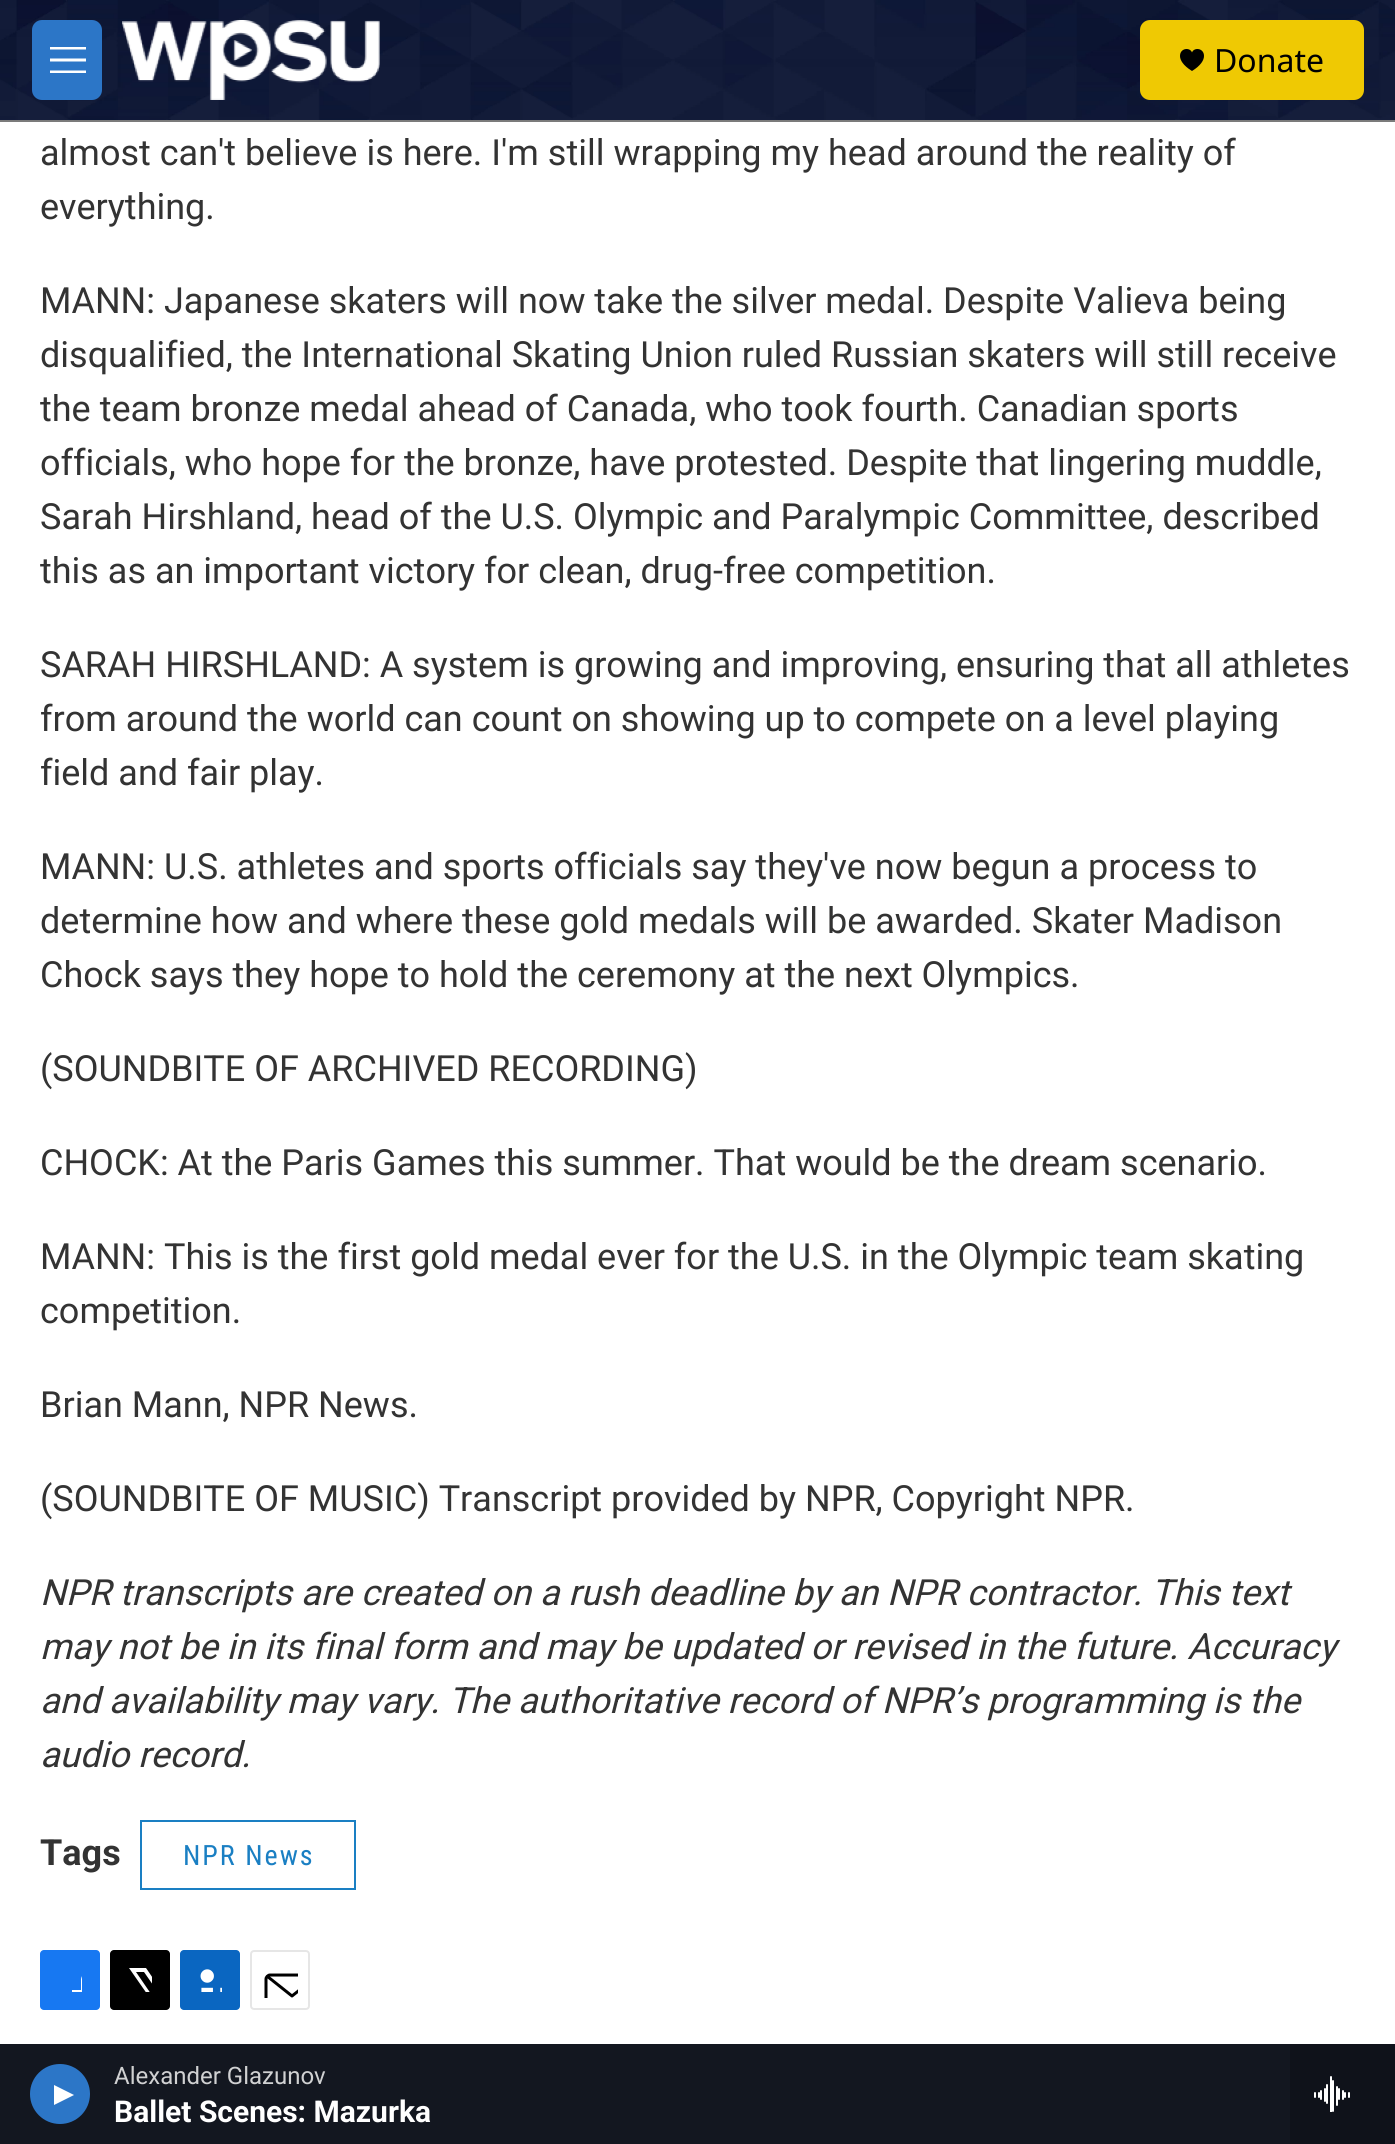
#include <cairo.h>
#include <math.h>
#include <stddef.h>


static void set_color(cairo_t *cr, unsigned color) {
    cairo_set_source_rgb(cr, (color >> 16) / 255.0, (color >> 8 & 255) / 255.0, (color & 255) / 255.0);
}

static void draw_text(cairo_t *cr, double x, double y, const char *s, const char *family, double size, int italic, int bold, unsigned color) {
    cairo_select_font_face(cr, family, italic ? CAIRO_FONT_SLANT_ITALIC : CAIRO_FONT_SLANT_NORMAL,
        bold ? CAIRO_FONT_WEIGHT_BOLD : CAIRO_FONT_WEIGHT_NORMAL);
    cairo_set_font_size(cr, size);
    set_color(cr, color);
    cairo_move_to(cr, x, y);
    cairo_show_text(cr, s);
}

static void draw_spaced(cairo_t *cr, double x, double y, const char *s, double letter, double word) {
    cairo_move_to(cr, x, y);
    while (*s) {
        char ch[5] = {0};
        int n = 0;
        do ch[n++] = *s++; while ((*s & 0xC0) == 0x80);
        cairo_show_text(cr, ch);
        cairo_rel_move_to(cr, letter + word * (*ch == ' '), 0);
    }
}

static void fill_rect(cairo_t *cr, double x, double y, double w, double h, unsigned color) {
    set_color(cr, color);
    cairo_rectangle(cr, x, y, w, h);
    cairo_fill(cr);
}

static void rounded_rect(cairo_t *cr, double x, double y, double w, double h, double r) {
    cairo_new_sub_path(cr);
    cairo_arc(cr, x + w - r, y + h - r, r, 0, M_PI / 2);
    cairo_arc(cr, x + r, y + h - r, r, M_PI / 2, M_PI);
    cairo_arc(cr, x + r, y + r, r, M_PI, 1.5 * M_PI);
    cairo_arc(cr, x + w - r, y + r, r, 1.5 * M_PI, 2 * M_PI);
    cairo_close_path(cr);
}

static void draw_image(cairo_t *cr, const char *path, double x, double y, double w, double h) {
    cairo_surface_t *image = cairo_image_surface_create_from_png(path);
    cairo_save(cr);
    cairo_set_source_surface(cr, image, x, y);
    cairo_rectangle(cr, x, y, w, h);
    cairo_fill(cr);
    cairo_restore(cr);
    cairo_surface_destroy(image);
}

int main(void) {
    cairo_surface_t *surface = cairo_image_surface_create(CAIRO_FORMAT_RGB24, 1395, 2144);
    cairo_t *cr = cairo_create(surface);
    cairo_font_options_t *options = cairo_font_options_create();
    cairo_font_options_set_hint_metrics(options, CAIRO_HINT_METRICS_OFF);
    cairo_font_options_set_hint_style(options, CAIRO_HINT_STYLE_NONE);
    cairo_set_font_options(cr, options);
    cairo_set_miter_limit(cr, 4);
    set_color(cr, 0xFFFFFF);
    cairo_paint(cr);
    fill_rect(cr, 0, 120, 1395, 2, 0x7B7B7B);
    draw_image(cr, "assets/img1.png", 0, 0, 1395, 120);
    set_color(cr, 0x2C76C7);
    rounded_rect(cr, 32, 20, 70, 80, 10);
    cairo_fill(cr);
    set_color(cr, 0xFFFFFF);
    cairo_set_fill_rule(cr, CAIRO_FILL_RULE_EVEN_ODD);
    cairo_new_path(cr);
    cairo_move_to(cr, 50, 61.5);
    cairo_line_to(cr, 50, 58.5);
    cairo_line_to(cr, 86, 58.5);
    cairo_line_to(cr, 86, 61.5);
    cairo_close_path(cr);
    cairo_move_to(cr, 50, 49.5);
    cairo_line_to(cr, 50, 47);
    cairo_line_to(cr, 86, 47);
    cairo_line_to(cr, 86, 49.5);
    cairo_close_path(cr);
    cairo_move_to(cr, 50, 73);
    cairo_line_to(cr, 50, 70.5);
    cairo_line_to(cr, 86, 70.5);
    cairo_line_to(cr, 86, 73);
    cairo_close_path(cr);
    cairo_fill(cr);
    draw_image(cr, "assets/img2.png", 122, 20, 258, 80);
    set_color(cr, 0xEFC903);
    rounded_rect(cr, 1140, 20, 224, 80, 10);
    cairo_fill(cr);
    draw_image(cr, "assets/img3.png", 1180, 49, 24, 22);
    draw_text(cr, 1214, 72, "Donate", "Noto Sans", 32, 0, 0, 0x000000);
    fill_rect(cr, 0, 2044, 1290, 100, 0x131720);
    set_color(cr, 0x2C76C7);
    cairo_new_path(cr);
    cairo_arc(cr, 60, 2094, 30, 0, 2 * M_PI);
    cairo_fill(cr);
    set_color(cr, 0xFFFFFF);
    cairo_set_fill_rule(cr, CAIRO_FILL_RULE_WINDING);
    cairo_new_path(cr);
    cairo_move_to(cr, 54, 2085);
    cairo_line_to(cr, 74, 2095);
    cairo_line_to(cr, 54, 2105);
    cairo_close_path(cr);
    cairo_fill(cr);
    draw_text(cr, 114, 2084, "Alexander Glazunov", "Roboto", 24, 0, 0, 0xD0D1D2);
    draw_text(cr, 114, 2122, "Ballet Scenes: Mazurka", "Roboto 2", 30, 0, 1, 0xFFFFFF);
    fill_rect(cr, 1290, 2044, 105, 100, 0x0F121A);
    draw_image(cr, "assets/img4.png", 1314, 2076, 36, 36);
    draw_text(cr, 40, 165, "almost can't believe is here. I'm still wrapping my head around the reality of", "Roboto", 36, 0, 0, 0x333333);
    draw_text(cr, 40, 219, "everything.", "Roboto", 36, 0, 0, 0x333333);
    draw_text(cr, 40, 313, "MANN: Japanese skaters will now take the silver medal. Despite Valieva being", "Roboto", 36, 0, 0, 0x333333);
    draw_text(cr, 40, 367, "disqualified, the International Skating Union ruled Russian skaters will still receive", "Roboto", 36, 0, 0, 0x333333);
    draw_text(cr, 40, 421, "the team bronze medal ahead of Canada, who took fourth. Canadian sports", "Roboto", 36, 0, 0, 0x333333);
    draw_text(cr, 40, 475, "officials, who hope for the bronze, have protested. Despite that lingering muddle,", "Roboto", 36, 0, 0, 0x333333);
    draw_text(cr, 40, 529, "Sarah Hirshland, head of the U.S. Olympic and Paralympic Committee, described", "Roboto", 36, 0, 0, 0x333333);
    draw_text(cr, 40, 583, "this as an important victory for clean, drug-free competition.", "Roboto", 36, 0, 0, 0x333333);
    draw_text(cr, 40, 677, "SARAH HIRSHLAND: A system is growing and improving, ensuring that all athletes", "Roboto", 36, 0, 0, 0x333333);
    draw_text(cr, 40, 731, "from around the world can count on showing up to compete on a level playing", "Roboto", 36, 0, 0, 0x333333);
    draw_text(cr, 40, 785, "field and fair play.", "Roboto", 36, 0, 0, 0x333333);
    draw_text(cr, 40, 879, "MANN: U.S. athletes and sports officials say they've now begun a process to", "Roboto", 36, 0, 0, 0x333333);
    draw_text(cr, 40, 933, "determine how and where these gold medals will be awarded. Skater Madison", "Roboto", 36, 0, 0, 0x333333);
    draw_text(cr, 40, 987, "Chock says they hope to hold the ceremony at the next Olympics.", "Roboto", 36, 0, 0, 0x333333);
    draw_text(cr, 40, 1081, "(SOUNDBITE OF ARCHIVED RECORDING)", "Roboto", 36, 0, 0, 0x333333);
    draw_text(cr, 40, 1175, "CHOCK: At the Paris Games this summer. That would be the dream scenario.", "Roboto", 36, 0, 0, 0x333333);
    draw_text(cr, 40, 1269, "MANN: This is the first gold medal ever for the U.S. in the Olympic team skating", "Roboto", 36, 0, 0, 0x333333);
    draw_text(cr, 40, 1323, "competition.", "Roboto", 36, 0, 0, 0x333333);
    draw_text(cr, 40, 1417, "Brian Mann, NPR News.", "Roboto", 36, 0, 0, 0x333333);
    draw_text(cr, 40, 1511, "(SOUNDBITE OF MUSIC) Transcript provided by NPR, Copyright NPR.", "Roboto", 36, 0, 0, 0x333333);
    draw_text(cr, 40, 1605, "NPR transcripts are created on a rush deadline by an NPR contractor. This text", "Roboto", 36, 1, 0, 0x333333);
    draw_text(cr, 40, 1659, "may not be in its final form and may be updated or revised in the future. Accuracy", "Roboto", 36, 1, 0, 0x333333);
    draw_text(cr, 40, 1713, "and availability may vary. The authoritative record of NPR’s programming is the", "Roboto", 36, 1, 0, 0x333333);
    draw_text(cr, 40, 1767, "audio record.", "Roboto", 36, 1, 0, 0x333333);
    draw_text(cr, 40, 1865, "Tags", "Roboto", 36, 0, 1, 0x333333);
    cairo_rectangle(cr, 141, 1821, 214, 68);
    set_color(cr, 0x1A7FC3);
    cairo_stroke(cr);
    cairo_select_font_face(cr, "Roboto Condensed", CAIRO_FONT_SLANT_NORMAL, CAIRO_FONT_WEIGHT_NORMAL);
    cairo_set_font_size(cr, 28);
    draw_spaced(cr, 183, 1865, "NPR News", 2, 0);
    set_color(cr, 0x1778F2);
    rounded_rect(cr, 40, 1950, 60, 60, 4);
    cairo_fill(cr);
    cairo_save(cr);
    cairo_rectangle(cr, 58, 1968, 24, 24);
    cairo_clip(cr);
    set_color(cr, 0xFFFFFF);
    cairo_new_path(cr);
    cairo_move_to(cr, 91, 2010);
    cairo_line_to(cr, 81, 2010);
    cairo_line_to(cr, 81, 2000);
    cairo_line_to(cr, 72, 2000);
    cairo_line_to(cr, 72, 1990);
    cairo_line_to(cr, 81, 1990);
    cairo_line_to(cr, 81, 1979);
    cairo_curve_to(cr, 83, 1970, 92, 1968, 100, 1969);
    cairo_line_to(cr, 100, 1978);
    cairo_curve_to(cr, 89, 1978, 91, 1981, 91, 1990);
    cairo_line_to(cr, 100, 1990);
    cairo_line_to(cr, 100, 1995);
    cairo_line_to(cr, 99, 2000);
    cairo_line_to(cr, 91, 2000);
    cairo_close_path(cr);
    cairo_fill(cr);
    cairo_restore(cr);
    set_color(cr, 0x000000);
    rounded_rect(cr, 110, 1950, 60, 60, 4);
    cairo_fill(cr);
    cairo_save(cr);
    cairo_rectangle(cr, 128, 1968, 24, 24);
    cairo_clip(cr);
    set_color(cr, 0xFFFFFF);
    cairo_new_path(cr);
    cairo_move_to(cr, 164, 1993);
    cairo_line_to(cr, 170, 2002);
    cairo_curve_to(cr, 170, 2004, 171, 2007, 169, 2008);
    cairo_line_to(cr, 144, 1972);
    cairo_line_to(cr, 136, 1972);
    cairo_line_to(cr, 162, 2010);
    cairo_line_to(cr, 157, 2010);
    cairo_line_to(cr, 154, 2005);
    cairo_line_to(cr, 150, 2010);
    cairo_line_to(cr, 144, 2010);
    cairo_line_to(cr, 152, 2001);
    cairo_line_to(cr, 129, 1968);
    cairo_line_to(cr, 146, 1968);
    cairo_line_to(cr, 161, 1990);
    cairo_line_to(cr, 170, 1980);
    cairo_line_to(cr, 170, 1986);
    cairo_close_path(cr);
    cairo_fill(cr);
    cairo_restore(cr);
    set_color(cr, 0x0A66C1);
    rounded_rect(cr, 180, 1950, 60, 60, 4);
    cairo_fill(cr);
    draw_image(cr, "assets/img5.png", 200, 1969, 22, 23);
    rounded_rect(cr, 251, 1951, 58, 58, 3);
    set_color(cr, 0xE6E6E6);
    cairo_stroke(cr);
    cairo_save(cr);
    cairo_rectangle(cr, 262, 1962, 36, 36);
    cairo_clip(cr);
    cairo_new_path(cr);
    cairo_move_to(cr, 318, 2006);
    cairo_curve_to(cr, 318, 2008, 316, 2009.5, 314, 2009.5);
    cairo_line_to(cr, 270, 2009.5);
    cairo_curve_to(cr, 268, 2009.5, 266, 2008, 266, 2006);
    cairo_line_to(cr, 266, 1979);
    cairo_curve_to(cr, 266, 1977, 268, 1975, 270, 1975);
    cairo_line_to(cr, 314, 1975);
    cairo_curve_to(cr, 316, 1975, 318, 1977, 318, 1979);
    cairo_close_path(cr);
    cairo_move_to(cr, 316.5, 1976.5);
    cairo_line_to(cr, 292, 1996);
    cairo_line_to(cr, 267.5, 1976.5);
    set_color(cr, 0x000000);
    cairo_set_line_width(cr, 3);
    cairo_set_line_cap(cr, CAIRO_LINE_CAP_ROUND);
    cairo_set_line_join(cr, CAIRO_LINE_JOIN_ROUND);
    cairo_stroke(cr);
    cairo_restore(cr);
    cairo_surface_write_to_png(surface, "output.png");
    cairo_font_options_destroy(options);
    cairo_destroy(cr);
    cairo_surface_destroy(surface);
    return 0;
}
